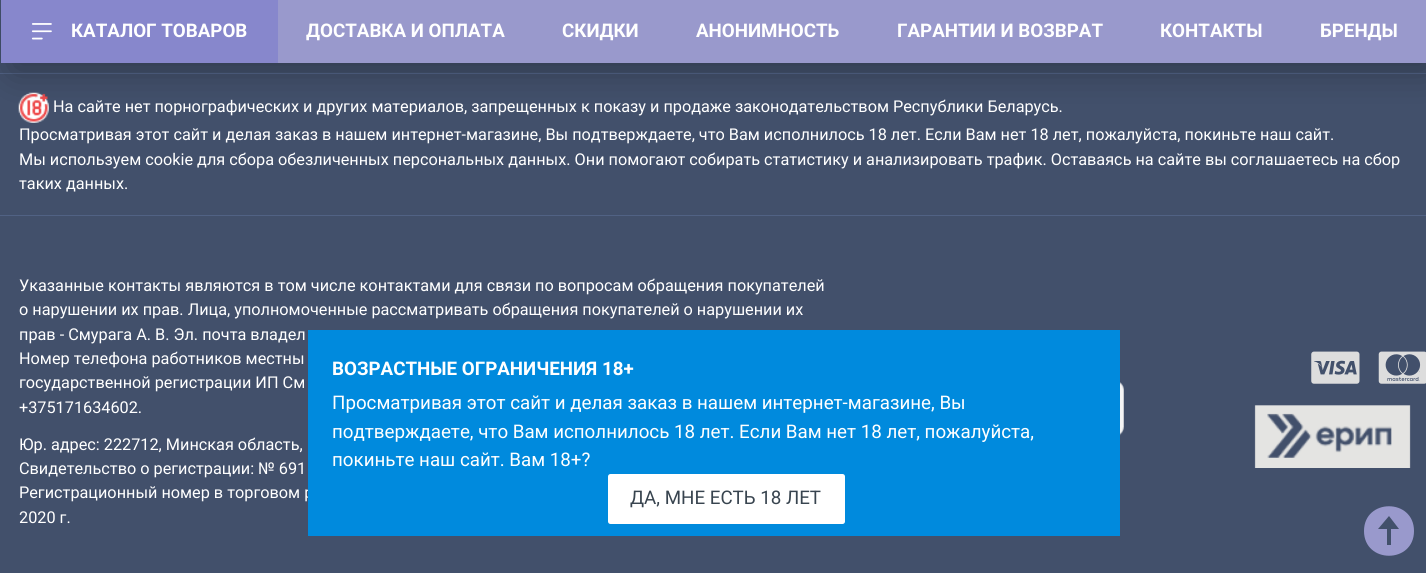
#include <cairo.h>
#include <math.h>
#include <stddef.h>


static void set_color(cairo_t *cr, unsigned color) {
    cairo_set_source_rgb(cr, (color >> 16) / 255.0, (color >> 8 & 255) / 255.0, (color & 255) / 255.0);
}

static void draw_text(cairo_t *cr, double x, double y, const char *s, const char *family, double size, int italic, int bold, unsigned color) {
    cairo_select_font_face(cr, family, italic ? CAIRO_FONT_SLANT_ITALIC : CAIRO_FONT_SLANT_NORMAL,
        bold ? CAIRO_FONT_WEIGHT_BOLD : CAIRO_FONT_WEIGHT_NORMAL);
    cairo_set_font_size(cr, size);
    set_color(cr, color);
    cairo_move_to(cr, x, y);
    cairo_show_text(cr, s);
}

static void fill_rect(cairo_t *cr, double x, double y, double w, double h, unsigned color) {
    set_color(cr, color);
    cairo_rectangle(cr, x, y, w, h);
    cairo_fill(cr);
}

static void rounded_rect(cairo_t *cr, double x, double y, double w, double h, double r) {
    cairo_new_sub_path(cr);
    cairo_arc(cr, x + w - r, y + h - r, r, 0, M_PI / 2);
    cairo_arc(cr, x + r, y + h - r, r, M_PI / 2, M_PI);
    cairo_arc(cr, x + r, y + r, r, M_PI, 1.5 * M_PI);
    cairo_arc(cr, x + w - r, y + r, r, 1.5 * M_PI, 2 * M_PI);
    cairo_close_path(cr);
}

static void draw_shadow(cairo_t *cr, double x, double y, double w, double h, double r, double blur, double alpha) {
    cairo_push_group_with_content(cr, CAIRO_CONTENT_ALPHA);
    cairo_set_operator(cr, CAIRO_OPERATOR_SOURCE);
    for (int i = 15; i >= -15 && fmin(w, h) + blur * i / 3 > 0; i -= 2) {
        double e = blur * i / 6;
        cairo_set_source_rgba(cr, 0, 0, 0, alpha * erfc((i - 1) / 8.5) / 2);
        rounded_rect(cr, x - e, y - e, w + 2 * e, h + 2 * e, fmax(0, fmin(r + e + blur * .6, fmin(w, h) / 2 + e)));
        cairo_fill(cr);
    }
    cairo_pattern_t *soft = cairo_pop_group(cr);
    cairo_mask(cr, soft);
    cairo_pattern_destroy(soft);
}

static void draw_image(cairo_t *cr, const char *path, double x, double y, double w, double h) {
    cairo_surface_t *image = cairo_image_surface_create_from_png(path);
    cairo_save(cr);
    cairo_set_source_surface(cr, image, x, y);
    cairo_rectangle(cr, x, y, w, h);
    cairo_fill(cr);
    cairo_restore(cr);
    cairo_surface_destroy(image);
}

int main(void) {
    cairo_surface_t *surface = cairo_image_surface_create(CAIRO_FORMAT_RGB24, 1426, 573);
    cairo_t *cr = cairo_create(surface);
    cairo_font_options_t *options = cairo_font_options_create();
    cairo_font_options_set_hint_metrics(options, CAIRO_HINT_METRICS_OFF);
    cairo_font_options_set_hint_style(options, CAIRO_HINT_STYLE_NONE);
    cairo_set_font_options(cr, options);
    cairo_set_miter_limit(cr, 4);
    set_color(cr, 0x42506B);
    cairo_paint(cr);
    fill_rect(cr, 0, 73, 1426, 1, 0x516284);
    draw_image(cr, "assets/img2.png", 18, 92, 31, 31);
    set_color(cr, 0x000000);
    draw_shadow(cr, 14, 19, 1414, 50, 0, 19, 0.3);
    fill_rect(cr, 278, 0, 1148, 63, 0x9999CC);
    fill_rect(cr, 1, 0, 277, 63, 0x8787CC);
    draw_image(cr, "assets/img1.png", 31, 23, 21, 17);
    draw_text(cr, 71, 37, "КАТАЛОГ ТОВАРОВ", "Roboto", 18.75, 0, 1, 0xFFFFFF);
    draw_text(cr, 306, 37, "ДОСТАВКА И ОПЛАТА", "Roboto", 18.75, 0, 1, 0xFFFFFF);
    draw_text(cr, 562, 37, "СКИДКИ", "Roboto", 18.75, 0, 1, 0xFFFFFF);
    draw_text(cr, 696, 37, "АНОНИМНОСТЬ", "Roboto", 18.75, 0, 1, 0xFFFFFF);
    draw_text(cr, 897, 37, "ГАРАНТИИ И ВОЗВРАТ", "Roboto", 18.75, 0, 1, 0xFFFFFF);
    draw_text(cr, 1160, 37, "КОНТАКТЫ", "Roboto", 18.75, 0, 1, 0xFFFFFF);
    draw_text(cr, 1320, 37, "БРЕНДЫ", "Roboto", 18.75, 0, 1, 0xFFFFFF);
    fill_rect(cr, 0, 215, 1426, 1, 0x516284);
    draw_text(cr, 53, 112, "На сайте нет порнографических и других материалов, запрещенных к показу и продаже законодательством Республики Беларусь.", "Roboto", 16.25, 0, 0, 0xFFFFFF);
    draw_text(cr, 19, 140, "Просматривая этот сайт и делая заказ в нашем интернет-магазине, Вы подтверждаете, что Вам исполнилось 18 лет. Если Вам нет 18 лет, пожалуйста, покиньте наш сайт.", "Roboto", 16.25, 0, 0, 0xFFFFFF);
    draw_text(cr, 19, 165, "Мы используем cookie для сбора обезличенных персональных данных. Они помогают собирать статистику и анализировать трафик. Оставаясь на сайте вы соглашаетесь на сбор", "Roboto", 16.25, 0, 0, 0xFFFFFF);
    draw_text(cr, 19, 189, "таких данных.", "Roboto", 16.25, 0, 0, 0xFFFFFF);
    draw_text(cr, 19, 291, "Указанные контакты являются в том числе контактами для связи по вопросам обращения покупателей", "Roboto", 16.25, 0, 0, 0xFFFFFF);
    draw_text(cr, 19, 315, "о нарушении их прав. Лица, уполномоченные рассматривать обращения покупателей о нарушении их", "Roboto", 16.25, 0, 0, 0xFFFFFF);
    draw_text(cr, 19, 340, "прав - Смурага А. В. Эл. почта владел", "Roboto", 16.25, 0, 0, 0xFFFFFF);
    draw_text(cr, 19, 364, "Номер телефона работников местны", "Roboto", 16.25, 0, 0, 0xFFFFFF);
    draw_text(cr, 19, 388, "государственной регистрации ИП См", "Roboto", 16.25, 0, 0, 0xFFFFFF);
    draw_text(cr, 19, 413, "+375171634602.", "Roboto", 16.25, 0, 0, 0xFFFFFF);
    draw_text(cr, 19, 450, "Юр. адрес: 222712, Минская область,", "Roboto", 16.25, 0, 0, 0xFFFFFF);
    draw_text(cr, 19, 474, "Свидетельство о регистрации: № 691", "Roboto", 16.25, 0, 0, 0xFFFFFF);
    draw_text(cr, 19, 498, "Регистрационный номер в торговом р", "Roboto", 16.25, 0, 0, 0xFFFFFF);
    draw_text(cr, 19, 523, "2020 г.", "Roboto", 16.25, 0, 0, 0xFFFFFF);
    draw_image(cr, "assets/img3.png", 1120, 382, 4, 54);
    draw_image(cr, "assets/img4.png", 1311, 351, 49, 33);
    draw_image(cr, "assets/img5.png", 1378, 351, 48, 33);
    draw_image(cr, "assets/img6.png", 1254, 405, 157, 63);
    fill_rect(cr, 308, 330, 812, 206, 0x008ADD);
    draw_text(cr, 332, 375, "ВОЗРАСТНЫЕ ОГРАНИЧЕНИЯ 18+", "Roboto", 18.75, 0, 1, 0xFFFFFF);
    draw_text(cr, 332, 409, "Просматривая этот сайт и делая заказ в нашем интернет-магазине, Вы", "Roboto", 18.75, 0, 0, 0xFFFFFF);
    draw_text(cr, 332, 438, "подтверждаете, что Вам исполнилось 18 лет. Если Вам нет 18 лет, пожалуйста,", "Roboto", 18.75, 0, 0, 0xFFFFFF);
    draw_text(cr, 332, 466, "покиньте наш сайт. Вам 18+?", "Roboto", 18.75, 0, 0, 0xFFFFFF);
    rounded_rect(cr, 608, 474, 237, 50, 2.5);
    cairo_fill(cr);
    draw_text(cr, 630, 504, "ДА, МНЕ ЕСТЬ 18 ЛЕТ", "Roboto", 18.75, 0, 0, 0x38444F);
    set_color(cr, 0x9999CC);
    cairo_new_path(cr);
    cairo_move_to(cr, 1364, 531);
    cairo_curve_to(cr, 1364, 564, 1414, 564, 1414, 531);
    cairo_curve_to(cr, 1414, 498, 1364, 498, 1364, 531);
    cairo_close_path(cr);
    cairo_move_to(cr, 1399, 529);
    cairo_line_to(cr, 1391, 529);
    cairo_line_to(cr, 1391, 545);
    cairo_line_to(cr, 1387, 545);
    cairo_line_to(cr, 1387, 529);
    cairo_line_to(cr, 1378, 529);
    cairo_line_to(cr, 1389, 516);
    cairo_close_path(cr);
    cairo_fill(cr);
    cairo_surface_write_to_png(surface, "output.png");
    cairo_font_options_destroy(options);
    cairo_destroy(cr);
    cairo_surface_destroy(surface);
    return 0;
}
